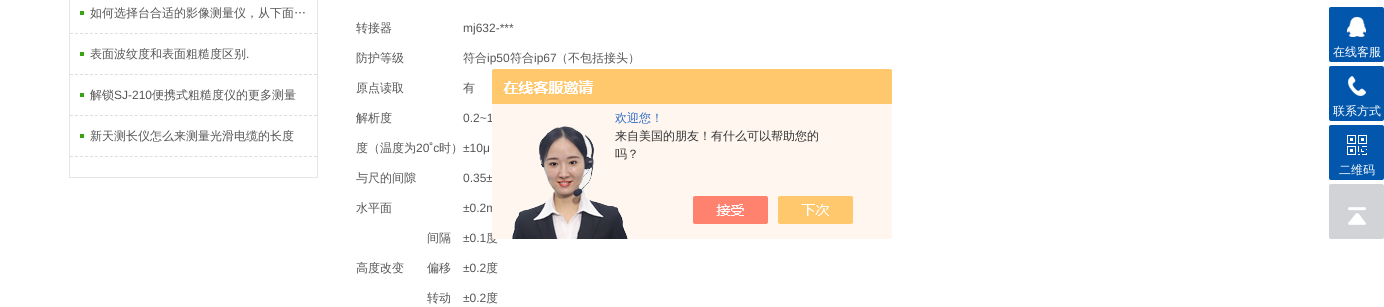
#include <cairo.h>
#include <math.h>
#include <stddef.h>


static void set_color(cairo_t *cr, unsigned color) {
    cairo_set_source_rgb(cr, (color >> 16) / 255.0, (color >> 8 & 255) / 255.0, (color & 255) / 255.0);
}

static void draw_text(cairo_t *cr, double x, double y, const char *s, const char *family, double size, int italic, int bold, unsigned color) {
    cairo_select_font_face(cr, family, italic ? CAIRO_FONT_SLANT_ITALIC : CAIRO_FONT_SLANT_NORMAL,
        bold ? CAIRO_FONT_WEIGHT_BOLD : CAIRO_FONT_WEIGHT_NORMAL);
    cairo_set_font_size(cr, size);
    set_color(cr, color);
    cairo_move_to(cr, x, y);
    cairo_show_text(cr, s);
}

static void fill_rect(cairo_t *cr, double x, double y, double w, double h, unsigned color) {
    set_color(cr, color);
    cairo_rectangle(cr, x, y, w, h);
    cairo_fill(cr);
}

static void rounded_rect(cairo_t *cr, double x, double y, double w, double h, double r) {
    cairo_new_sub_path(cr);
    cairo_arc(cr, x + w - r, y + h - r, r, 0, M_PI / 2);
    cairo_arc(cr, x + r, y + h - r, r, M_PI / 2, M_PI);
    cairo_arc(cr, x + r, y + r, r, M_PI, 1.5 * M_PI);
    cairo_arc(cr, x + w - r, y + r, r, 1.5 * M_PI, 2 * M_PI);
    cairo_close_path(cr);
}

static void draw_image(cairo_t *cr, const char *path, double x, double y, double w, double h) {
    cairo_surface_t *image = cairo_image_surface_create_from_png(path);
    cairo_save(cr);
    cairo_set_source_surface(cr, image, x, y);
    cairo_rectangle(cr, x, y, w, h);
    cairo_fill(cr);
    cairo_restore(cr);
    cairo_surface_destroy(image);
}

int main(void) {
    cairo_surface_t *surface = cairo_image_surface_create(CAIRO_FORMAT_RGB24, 1384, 307);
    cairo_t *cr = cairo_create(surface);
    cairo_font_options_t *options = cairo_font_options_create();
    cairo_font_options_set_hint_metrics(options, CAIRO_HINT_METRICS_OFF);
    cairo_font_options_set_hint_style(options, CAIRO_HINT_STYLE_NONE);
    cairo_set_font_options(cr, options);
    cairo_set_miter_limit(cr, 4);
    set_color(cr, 0xFFFFFF);
    cairo_paint(cr);
    fill_rect(cr, 317, 0, 1, 178, 0xE5E5E5);
    fill_rect(cr, 69, 177, 249, 1, 0xE5E5E5);
    fill_rect(cr, 69, 0, 1, 178, 0xE5E5E5);
    fill_rect(cr, 80, 11, 4, 4, 0x3AA314);
    cairo_new_path(cr);
    cairo_move_to(cr, 70, 33.5);
    cairo_line_to(cr, 317, 33.5);
    set_color(cr, 0xDEDEDE);
    cairo_set_line_width(cr, 1);
    cairo_set_dash(cr, (double[]){3, 1.98}, 2, 0);
    cairo_stroke(cr);
    draw_text(cr, 90, 17, "如何选择台合适的影像测量仪，从下面…", "WenQuanYi Zen Hei Medium", 12, 0, 0, 0x555555);
    fill_rect(cr, 80, 52, 4, 4, 0x3AA314);
    cairo_new_path(cr);
    cairo_move_to(cr, 70, 74.5);
    cairo_line_to(cr, 317, 74.5);
    set_color(cr, 0xDEDEDE);
    cairo_stroke(cr);
    draw_text(cr, 90, 58, "表面波纹度和表面粗糙度区别", "WenQuanYi Zen Hei Medium", 12, 0, 0, 0x555555);
    draw_text(cr, 246, 58, ".", "Liberation Sans", 12, 0, 0, 0x555555);
    fill_rect(cr, 80, 93, 4, 4, 0x3AA314);
    cairo_new_path(cr);
    cairo_move_to(cr, 70, 115.5);
    cairo_line_to(cr, 317, 115.5);
    set_color(cr, 0xDEDEDE);
    cairo_stroke(cr);
    draw_text(cr, 90, 99, "解锁", "WenQuanYi Zen Hei Medium", 12, 0, 0, 0x555555);
    draw_text(cr, 114, 99, "SJ-210", "Liberation Sans", 12, 0, 0, 0x555555);
    draw_text(cr, 152, 99, "便携式粗糙度仪的更多测量", "WenQuanYi Zen Hei Medium", 12, 0, 0, 0x555555);
    fill_rect(cr, 80, 134, 4, 4, 0x3AA314);
    cairo_new_path(cr);
    cairo_move_to(cr, 70, 156.5);
    cairo_line_to(cr, 317, 156.5);
    set_color(cr, 0xDEDEDE);
    cairo_stroke(cr);
    draw_text(cr, 90, 140, "新天测长仪怎么来测量光滑电缆的长度", "WenQuanYi Zen Hei Medium", 12, 0, 0, 0x555555);
    draw_text(cr, 356, 32, "转接器", "WenQuanYi Zen Hei Medium", 12, 0, 0, 0x555555);
    draw_text(cr, 463, 32, "mj632-***", "Liberation Sans", 12, 0, 0, 0x555555);
    draw_text(cr, 356, 62, "防护等级", "WenQuanYi Zen Hei Medium", 12, 0, 0, 0x555555);
    draw_text(cr, 463, 62, "符合", "WenQuanYi Zen Hei Medium", 12, 0, 0, 0x555555);
    draw_text(cr, 487, 62, "ip50", "Liberation Sans", 12, 0, 0, 0x555555);
    draw_text(cr, 510, 62, "符合", "WenQuanYi Zen Hei Medium", 12, 0, 0, 0x555555);
    draw_text(cr, 534, 62, "ip67", "Liberation Sans", 12, 0, 0, 0x555555);
    draw_text(cr, 556, 62, "（不包括接头）", "WenQuanYi Zen Hei Medium", 12, 0, 0, 0x555555);
    draw_text(cr, 356, 92, "原点读取", "WenQuanYi Zen Hei Medium", 12, 0, 0, 0x555555);
    draw_text(cr, 463, 92, "有", "WenQuanYi Zen Hei Medium", 12, 0, 0, 0x555555);
    draw_text(cr, 356, 122, "解析度", "WenQuanYi Zen Hei Medium", 12, 0, 0, 0x555555);
    draw_text(cr, 463, 122, "0.2~1", "Liberation Sans", 12, 0, 0, 0x555555);
    draw_text(cr, 356, 152, "度（温度为", "WenQuanYi Zen Hei Medium", 12, 0, 0, 0x555555);
    draw_text(cr, 416, 152, "20˚c", "Liberation Sans", 12, 0, 0, 0x555555);
    draw_text(cr, 439, 152, "时）", "WenQuanYi Zen Hei Medium", 12, 0, 0, 0x555555);
    draw_text(cr, 463, 152, "±10μ", "Liberation Sans", 12, 0, 0, 0x555555);
    draw_text(cr, 356, 182, "与尺的间隙", "WenQuanYi Zen Hei Medium", 12, 0, 0, 0x555555);
    draw_text(cr, 463, 182, "0.35±", "Liberation Sans", 12, 0, 0, 0x555555);
    draw_text(cr, 356, 212, "水平面", "WenQuanYi Zen Hei Medium", 12, 0, 0, 0x555555);
    draw_text(cr, 463, 212, "±0.2m", "Liberation Sans", 12, 0, 0, 0x555555);
    draw_text(cr, 427, 242, "间隔", "WenQuanYi Zen Hei Medium", 12, 0, 0, 0x555555);
    draw_text(cr, 463, 242, "±0.1", "Liberation Sans", 12, 0, 0, 0x555555);
    draw_text(cr, 486, 242, "度", "WenQuanYi Zen Hei Medium", 12, 0, 0, 0x555555);
    draw_text(cr, 356, 272, "高度改变", "WenQuanYi Zen Hei Medium", 12, 0, 0, 0x555555);
    draw_text(cr, 427, 272, "偏移", "WenQuanYi Zen Hei Medium", 12, 0, 0, 0x555555);
    draw_text(cr, 463, 272, "±0.2", "Liberation Sans", 12, 0, 0, 0x555555);
    draw_text(cr, 486, 272, "度", "WenQuanYi Zen Hei Medium", 12, 0, 0, 0x555555);
    draw_text(cr, 427, 302, "转动", "WenQuanYi Zen Hei Medium", 12, 0, 0, 0x555555);
    draw_text(cr, 463, 302, "±0.2", "Liberation Sans", 12, 0, 0, 0x555555);
    draw_text(cr, 486, 302, "度", "WenQuanYi Zen Hei Medium", 12, 0, 0, 0x555555);
    draw_image(cr, "assets/img1.png", 492, 69, 400, 170);
    draw_text(cr, 615, 122, "欢迎您！", "WenQuanYi Zen Hei Medium", 12, 0, 0, 0x2E6EC6);
    draw_text(cr, 615, 140, "来自美国的朋友！有什么可以帮助您的", "WenQuanYi Zen Hei Medium", 12, 0, 0, 0x333333);
    draw_text(cr, 615, 158, "吗？", "WenQuanYi Zen Hei Medium", 12, 0, 0, 0x333333);
    set_color(cr, 0x0256AC);
    rounded_rect(cr, 1329, 7, 55, 55, 2);
    cairo_fill(cr);
    draw_image(cr, "assets/img2.png", 1347, 17, 19, 20);
    draw_text(cr, 1333, 56, "在线客服", "WenQuanYi Zen Hei Medium", 12, 0, 0, 0xFFFFFF);
    set_color(cr, 0x0256AC);
    rounded_rect(cr, 1329, 66, 55, 55, 2);
    cairo_fill(cr);
    draw_image(cr, "assets/img3.png", 1348, 76, 18, 20);
    draw_text(cr, 1333, 115, "联系方式", "WenQuanYi Zen Hei Medium", 12, 0, 0, 0xFFFFFF);
    set_color(cr, 0x0256AC);
    rounded_rect(cr, 1329, 125, 55, 55, 2);
    cairo_fill(cr);
    draw_image(cr, "assets/img4.png", 1347, 135, 20, 20);
    draw_text(cr, 1339, 174, "二维码", "WenQuanYi Zen Hei Medium", 12, 0, 0, 0xFFFFFF);
    set_color(cr, 0xD2D3D6);
    rounded_rect(cr, 1329, 184, 55, 55, 2);
    cairo_fill(cr);
    draw_image(cr, "assets/img5.png", 1348, 207, 18, 18);
    cairo_surface_write_to_png(surface, "output.png");
    cairo_font_options_destroy(options);
    cairo_destroy(cr);
    cairo_surface_destroy(surface);
    return 0;
}
